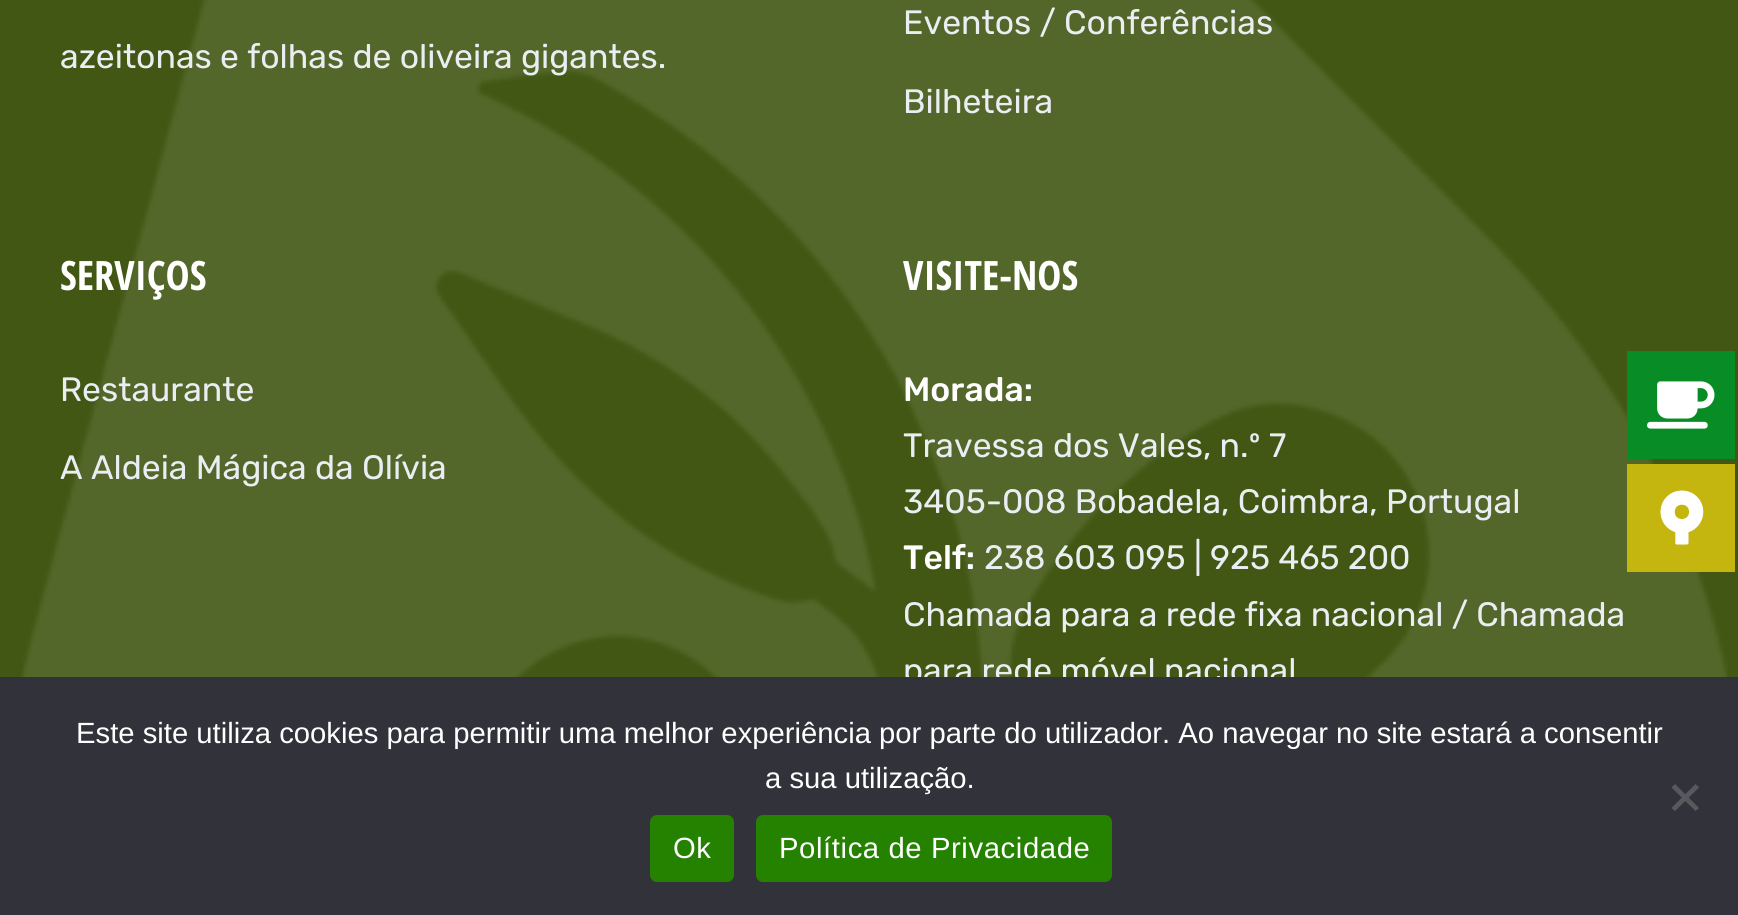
#include <cairo.h>
#include <math.h>
#include <stddef.h>


static void set_color(cairo_t *cr, unsigned color) {
    cairo_set_source_rgb(cr, (color >> 16) / 255.0, (color >> 8 & 255) / 255.0, (color & 255) / 255.0);
}

static void draw_text(cairo_t *cr, double x, double y, const char *s, const char *family, double size, int italic, int bold, unsigned color) {
    cairo_select_font_face(cr, family, italic ? CAIRO_FONT_SLANT_ITALIC : CAIRO_FONT_SLANT_NORMAL,
        bold ? CAIRO_FONT_WEIGHT_BOLD : CAIRO_FONT_WEIGHT_NORMAL);
    cairo_set_font_size(cr, size);
    set_color(cr, color);
    cairo_move_to(cr, x, y);
    cairo_show_text(cr, s);
}

static void draw_spaced(cairo_t *cr, double x, double y, const char *s, double letter, double word) {
    cairo_move_to(cr, x, y);
    while (*s) {
        char ch[5] = {0};
        int n = 0;
        do ch[n++] = *s++; while ((*s & 0xC0) == 0x80);
        cairo_show_text(cr, ch);
        cairo_rel_move_to(cr, letter + word * (*ch == ' '), 0);
    }
}

static void fill_rect(cairo_t *cr, double x, double y, double w, double h, unsigned color) {
    set_color(cr, color);
    cairo_rectangle(cr, x, y, w, h);
    cairo_fill(cr);
}

static void rounded_rect(cairo_t *cr, double x, double y, double w, double h, double r) {
    cairo_new_sub_path(cr);
    cairo_arc(cr, x + w - r, y + h - r, r, 0, M_PI / 2);
    cairo_arc(cr, x + r, y + h - r, r, M_PI / 2, M_PI);
    cairo_arc(cr, x + r, y + r, r, M_PI, 1.5 * M_PI);
    cairo_arc(cr, x + w - r, y + r, r, 1.5 * M_PI, 2 * M_PI);
    cairo_close_path(cr);
}

static void draw_image(cairo_t *cr, const char *path, double x, double y, double w, double h) {
    cairo_surface_t *image = cairo_image_surface_create_from_png(path);
    cairo_save(cr);
    cairo_set_source_surface(cr, image, x, y);
    cairo_rectangle(cr, x, y, w, h);
    cairo_fill(cr);
    cairo_restore(cr);
    cairo_surface_destroy(image);
}

int main(void) {
    cairo_surface_t *surface = cairo_image_surface_create(CAIRO_FORMAT_RGB24, 1738, 915);
    cairo_t *cr = cairo_create(surface);
    cairo_font_options_t *options = cairo_font_options_create();
    cairo_font_options_set_hint_metrics(options, CAIRO_HINT_METRICS_OFF);
    cairo_font_options_set_hint_style(options, CAIRO_HINT_STYLE_NONE);
    cairo_set_font_options(cr, options);
    cairo_set_miter_limit(cr, 4);
    set_color(cr, 0x415713);
    cairo_paint(cr);
    draw_image(cr, "assets/img1.png", 21, 0, 1707, 677);
    draw_text(cr, 60, 68, "azeitonas e folhas de oliveira gigantes.", "Rubik", 33.75, 0, 0, 0xEAEEF3);
    draw_text(cr, 903, 34, "Eventos / Conferências", "Rubik", 33.75, 0, 0, 0xEAEEF3);
    draw_text(cr, 903, 113, "Bilheteira", "Rubik", 33.75, 0, 0, 0xEAEEF3);
    draw_text(cr, 60, 290, "SERVIÇOS", "Open Sans Condensed", 40.5, 0, 1, 0xFFFFFF);
    draw_text(cr, 60, 401, "Restaurante", "Rubik", 33.75, 0, 0, 0xEAEEF3);
    draw_text(cr, 60, 479, "A Aldeia Mágica da Olívia", "Rubik", 33.75, 0, 0, 0xEAEEF3);
    draw_text(cr, 903, 290, "VISITE-NOS", "Open Sans Condensed", 40.5, 0, 1, 0xFFFFFF);
    draw_text(cr, 903, 401, "Morada:", "Rubik Medium", 33.75, 0, 0, 0xFFFFFF);
    draw_text(cr, 903, 457, "Travessa dos Vales, n.º 7", "Rubik", 33.75, 0, 0, 0xEAEEF3);
    draw_text(cr, 903, 513, "3405-008 Bobadela, Coimbra, Portugal", "Rubik", 33.75, 0, 0, 0xEAEEF3);
    draw_text(cr, 903, 569, "Telf:", "Rubik Medium", 33.75, 0, 0, 0xFFFFFF);
    draw_text(cr, 984, 569, "238 603 095 | 925 465 200", "Rubik", 33.75, 0, 0, 0xEAEEF3);
    draw_text(cr, 903, 626, "Chamada para a rede fixa nacional / Chamada", "Rubik", 33.75, 0, 0, 0xEAEEF3);
    draw_text(cr, 903, 682, "para rede móvel nacional", "Rubik", 33.75, 0, 0, 0xEAEEF3);
    fill_rect(cr, 1627, 351, 108, 108, 0x078C26);
    draw_image(cr, "assets/img2.png", 1647, 381, 68, 48);
    fill_rect(cr, 1627, 464, 108, 108, 0xC4B50F);
    draw_image(cr, "assets/img3.png", 1660, 490, 44, 55);
    fill_rect(cr, 0, 677, 1738, 238, 0x32323A);
    draw_text(cr, 76, 743, "Este site utiliza cookies para permitir uma melhor experiência por parte do utilizador. Ao navegar no site estará a consentir", "Liberation Sans", 29.25, 0, 0, 0xFFFFFF);
    draw_text(cr, 765, 788, "a sua utilização.", "Liberation Sans", 29.25, 0, 0, 0xFFFFFF);
    set_color(cr, 0x59595D);
    cairo_new_path(cr);
    cairo_move_to(cr, 1695.5, 784);
    cairo_line_to(cr, 1699, 787.5);
    cairo_line_to(cr, 1675, 811);
    cairo_line_to(cr, 1671.5, 808);
    cairo_close_path(cr);
    cairo_fill(cr);
    cairo_new_path(cr);
    cairo_move_to(cr, 1671.5, 787.5);
    cairo_line_to(cr, 1675, 784);
    cairo_line_to(cr, 1699, 808);
    cairo_line_to(cr, 1695.5, 811);
    cairo_close_path(cr);
    cairo_fill(cr);
    set_color(cr, 0x248200);
    rounded_rect(cr, 650, 815, 84, 67, 7);
    cairo_fill(cr);
    set_color(cr, 0xFFFFFF);
    draw_spaced(cr, 673, 858, "Ok", 0.6, 0);
    set_color(cr, 0x248200);
    rounded_rect(cr, 756, 815, 356, 67, 7);
    cairo_fill(cr);
    set_color(cr, 0xFFFFFF);
    draw_spaced(cr, 779, 858, "Política de Privacidade", 0.6, 0);
    cairo_surface_write_to_png(surface, "output.png");
    cairo_font_options_destroy(options);
    cairo_destroy(cr);
    cairo_surface_destroy(surface);
    return 0;
}
